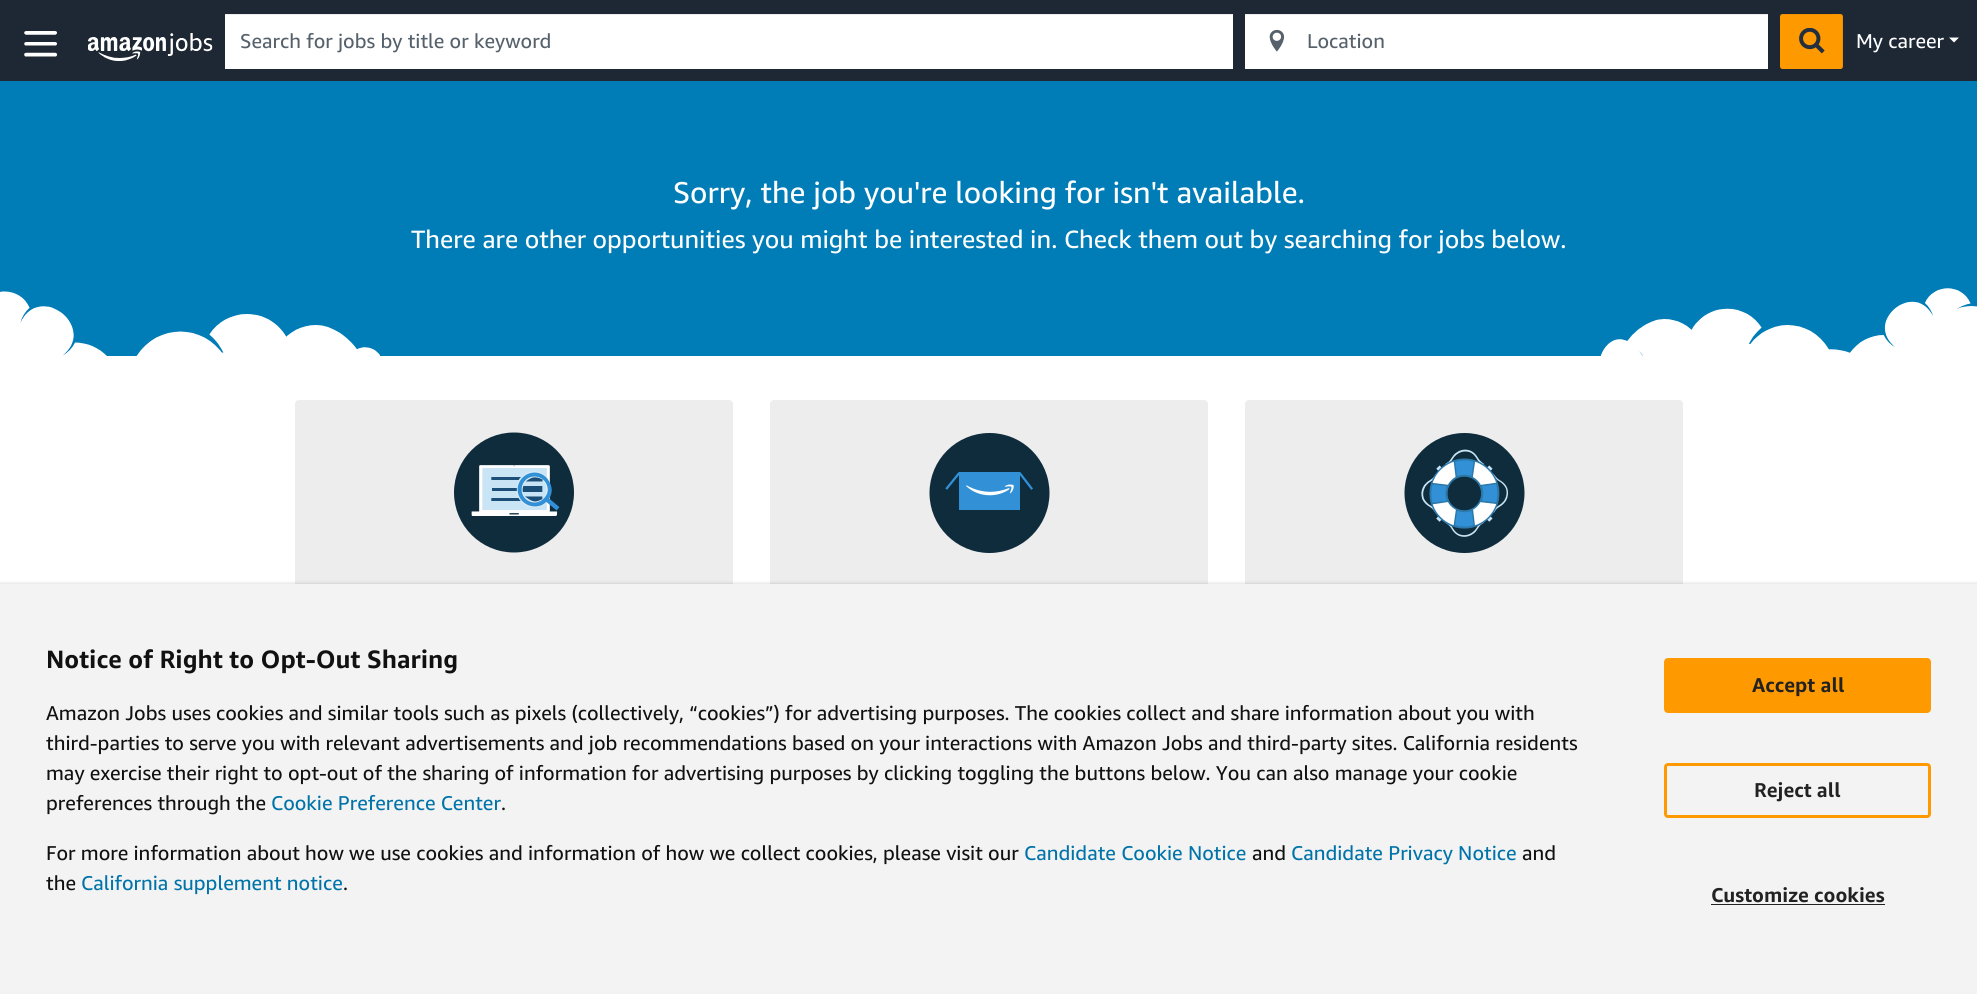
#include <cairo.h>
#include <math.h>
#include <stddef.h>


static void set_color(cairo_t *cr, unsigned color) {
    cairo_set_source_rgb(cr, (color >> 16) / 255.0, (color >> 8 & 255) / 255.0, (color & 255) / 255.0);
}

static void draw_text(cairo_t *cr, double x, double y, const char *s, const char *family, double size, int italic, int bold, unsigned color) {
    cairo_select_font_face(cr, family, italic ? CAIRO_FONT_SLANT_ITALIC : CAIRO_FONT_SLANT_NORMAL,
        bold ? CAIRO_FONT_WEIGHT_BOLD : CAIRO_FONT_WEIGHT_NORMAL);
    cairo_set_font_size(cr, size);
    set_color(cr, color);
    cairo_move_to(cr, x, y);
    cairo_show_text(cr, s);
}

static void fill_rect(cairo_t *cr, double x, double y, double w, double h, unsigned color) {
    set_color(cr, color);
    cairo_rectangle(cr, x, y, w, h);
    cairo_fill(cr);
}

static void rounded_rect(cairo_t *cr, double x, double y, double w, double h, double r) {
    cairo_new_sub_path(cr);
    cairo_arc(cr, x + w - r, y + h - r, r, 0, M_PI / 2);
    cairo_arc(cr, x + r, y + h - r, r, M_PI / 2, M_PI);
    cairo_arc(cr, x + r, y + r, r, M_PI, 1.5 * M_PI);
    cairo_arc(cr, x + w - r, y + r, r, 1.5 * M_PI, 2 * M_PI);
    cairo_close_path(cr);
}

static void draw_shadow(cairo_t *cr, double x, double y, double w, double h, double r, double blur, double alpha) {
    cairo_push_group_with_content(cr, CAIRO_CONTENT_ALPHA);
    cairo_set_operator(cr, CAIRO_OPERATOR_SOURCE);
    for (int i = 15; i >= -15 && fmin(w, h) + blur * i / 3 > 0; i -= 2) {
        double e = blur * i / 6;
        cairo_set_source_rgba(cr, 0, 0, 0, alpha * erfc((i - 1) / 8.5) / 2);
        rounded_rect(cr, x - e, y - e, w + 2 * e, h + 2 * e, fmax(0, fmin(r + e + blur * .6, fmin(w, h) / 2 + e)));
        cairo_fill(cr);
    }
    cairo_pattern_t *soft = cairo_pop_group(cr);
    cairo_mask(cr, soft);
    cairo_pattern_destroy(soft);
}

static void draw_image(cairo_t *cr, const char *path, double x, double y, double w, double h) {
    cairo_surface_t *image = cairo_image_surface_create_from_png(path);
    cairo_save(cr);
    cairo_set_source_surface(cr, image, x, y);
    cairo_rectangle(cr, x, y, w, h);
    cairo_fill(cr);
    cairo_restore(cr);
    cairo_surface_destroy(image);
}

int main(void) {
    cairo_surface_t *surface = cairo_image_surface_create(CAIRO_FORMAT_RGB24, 1977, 994);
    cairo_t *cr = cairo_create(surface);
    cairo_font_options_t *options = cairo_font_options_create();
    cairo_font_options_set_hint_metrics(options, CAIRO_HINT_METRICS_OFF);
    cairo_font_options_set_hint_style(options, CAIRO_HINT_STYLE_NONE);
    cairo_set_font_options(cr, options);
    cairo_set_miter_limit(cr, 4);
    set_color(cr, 0xFFFFFF);
    cairo_paint(cr);
    fill_rect(cr, 0, 0, 1977, 81, 0x1D2834);
    draw_image(cr, "assets/img1.png", 24, 31, 33, 26);
    draw_image(cr, "assets/img2.png", 88, 33, 125, 28);
    fill_rect(cr, 225, 15, 1008, 54, 0xFFFFFF);
    fill_rect(cr, 225, 14, 1008, 1, 0xECECEC);
    draw_text(cr, 240, 48, "Search for jobs by title or keyword", "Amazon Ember", 20, 0, 0, 0x56616C);
    fill_rect(cr, 1245, 15, 523, 54, 0xFFFFFF);
    draw_image(cr, "assets/img3.png", 1269, 29, 16, 23);
    fill_rect(cr, 1245, 14, 523, 1, 0xECECEC);
    draw_text(cr, 1307, 48, "Location", "Amazon Ember", 20, 0, 0, 0x56616C);
    set_color(cr, 0xFF9900);
    rounded_rect(cr, 1780, 14, 63, 55, 2.5);
    cairo_fill(cr);
    cairo_set_source_rgba(cr, 0, 0, 0, 0.07);
    cairo_new_path(cr);
    cairo_move_to(cr, 1782, 15);
    cairo_line_to(cr, 1830, 15);
    cairo_curve_to(cr, 1833, 15, 1842, 12, 1842, 18);
    cairo_line_to(cr, 1842, 69);
    cairo_curve_to(cr, 1843, 68, 1843, 67, 1843, 66);
    cairo_line_to(cr, 1843, 16);
    cairo_curve_to(cr, 1843, 15, 1842, 14, 1840, 14);
    cairo_line_to(cr, 1782, 14);
    cairo_curve_to(cr, 1781, 14, 1780, 15, 1780, 16);
    cairo_line_to(cr, 1780, 18);
    cairo_curve_to(cr, 1780, 16, 1781, 15, 1782, 15);
    cairo_close_path(cr);
    cairo_fill(cr);
    draw_image(cr, "assets/img4.png", 1799, 28, 26, 26);
    draw_text(cr, 1856, 48, "My career", "Amazon Ember", 20, 0, 0, 0xFFFFFF);
    cairo_new_path(cr);
    cairo_move_to(cr, 1949, 37.5);
    cairo_line_to(cr, 1959, 37.5);
    cairo_line_to(cr, 1954, 42.5);
    cairo_close_path(cr);
    cairo_fill(cr);
    fill_rect(cr, 0, 81, 1977, 275, 0x007CB6);
    draw_image(cr, "assets/img5.png", 0, 288, 1977, 68);
    draw_text(cr, 673, 203, "Sorry, the job you're looking for isn't available.", "Amazon Ember", 30, 0, 0, 0xFFFFFF);
    draw_text(cr, 411, 248, "There are other opportunities you might be interested in. Check them out by searching for jobs below.", "Amazon Ember", 25, 0, 0, 0xFFFFFF);
    set_color(cr, 0xEDEDED);
    rounded_rect(cr, 295, 400, 438, 421, 4);
    cairo_fill(cr);
    draw_image(cr, "assets/img6.png", 454, 432, 120, 121);
    rounded_rect(cr, 770, 400, 438, 421, 4);
    cairo_fill(cr);
    draw_image(cr, "assets/img7.png", 929, 433, 121, 120);
    rounded_rect(cr, 1245, 400, 438, 421, 4);
    cairo_fill(cr);
    draw_image(cr, "assets/img8.png", 1404, 433, 121, 120);
    set_color(cr, 0x000000);
    draw_shadow(cr, 0, 584, 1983, 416, 0, 2, 0.2);
    fill_rect(cr, 0, 584, 1977, 410, 0xF3F3F3);
    draw_text(cr, 46, 668, "Notice of Right to Opt-Out Sharing", "Amazon Ember", 25, 0, 1, 0x111111);
    draw_text(cr, 46, 720, "Amazon Jobs uses cookies and similar tools such as pixels (collectively, “cookies”) for advertising purposes. The cookies collect and share information about you with", "Amazon Ember", 20, 0, 0, 0x111111);
    draw_text(cr, 46, 750, "third-parties to serve you with relevant advertisements and job recommendations based on your interactions with Amazon Jobs and third-party sites. California residents", "Amazon Ember", 20, 0, 0, 0x111111);
    draw_text(cr, 46, 780, "may exercise their right to opt-out of the sharing of information for advertising purposes by clicking toggling the buttons below. You can also manage your cookie", "Amazon Ember", 20, 0, 0, 0x111111);
    draw_text(cr, 46, 810, "preferences through the", "Amazon Ember", 20, 0, 0, 0x111111);
    draw_text(cr, 271, 810, "Cookie Preference Center", "Amazon Ember", 20, 0, 0, 0x0073A8);
    draw_text(cr, 501, 810, ".", "Amazon Ember", 20, 0, 0, 0x111111);
    draw_text(cr, 46, 860, "For more information about how we use cookies and information of how we collect cookies, please visit our", "Amazon Ember", 20, 0, 0, 0x111111);
    draw_text(cr, 1024, 860, "Candidate Cookie Notice", "Amazon Ember", 20, 0, 0, 0x0073A8);
    draw_text(cr, 1252, 860, "and", "Amazon Ember", 20, 0, 0, 0x111111);
    draw_text(cr, 1291, 860, "Candidate Privacy Notice", "Amazon Ember", 20, 0, 0, 0x0073A8);
    draw_text(cr, 1522, 860, "and", "Amazon Ember", 20, 0, 0, 0x111111);
    draw_text(cr, 46, 890, "the", "Amazon Ember", 20, 0, 0, 0x111111);
    draw_text(cr, 81, 890, "California supplement notice", "Amazon Ember", 20, 0, 0, 0x0073A8);
    draw_text(cr, 343, 890, ".", "Amazon Ember", 20, 0, 0, 0x111111);
    set_color(cr, 0xFF9900);
    rounded_rect(cr, 1665.5, 659.5, 264, 52, 2.5);
    cairo_fill_preserve(cr);
    cairo_set_line_width(cr, 3);
    cairo_stroke(cr);
    draw_text(cr, 1752, 692, "Accept all", "Amazon Ember", 20, 0, 1, 0x222222);
    rounded_rect(cr, 1665.5, 764.5, 264, 52, 2.5);
    set_color(cr, 0xFF9900);
    cairo_stroke(cr);
    draw_text(cr, 1754, 797, "Reject all", "Amazon Ember", 20, 0, 1, 0x222222);
    draw_text(cr, 1711, 902, "Customize cookies", "Amazon Ember", 20, 0, 1, 0x222222);
    fill_rect(cr, 1711, 904, 174, 1, 0x222222);
    cairo_surface_write_to_png(surface, "output.png");
    cairo_font_options_destroy(options);
    cairo_destroy(cr);
    cairo_surface_destroy(surface);
    return 0;
}
